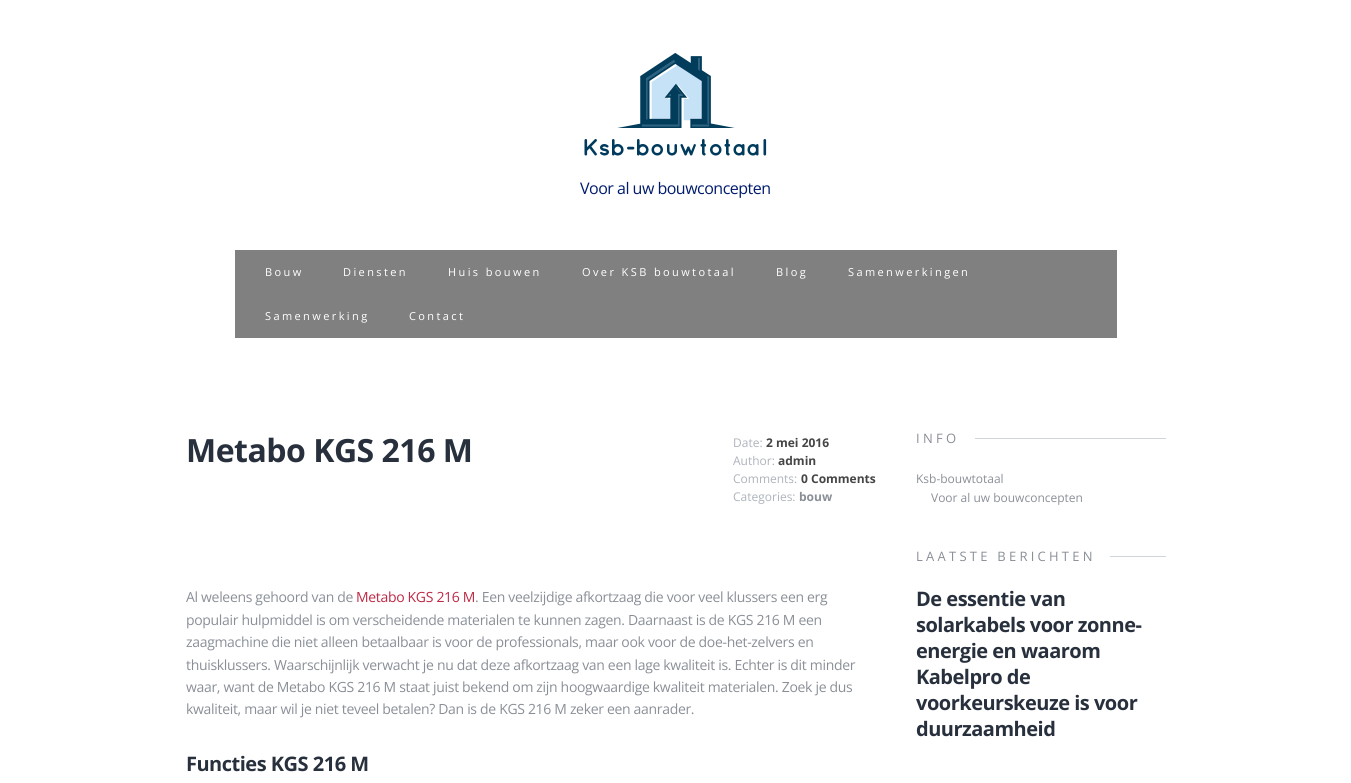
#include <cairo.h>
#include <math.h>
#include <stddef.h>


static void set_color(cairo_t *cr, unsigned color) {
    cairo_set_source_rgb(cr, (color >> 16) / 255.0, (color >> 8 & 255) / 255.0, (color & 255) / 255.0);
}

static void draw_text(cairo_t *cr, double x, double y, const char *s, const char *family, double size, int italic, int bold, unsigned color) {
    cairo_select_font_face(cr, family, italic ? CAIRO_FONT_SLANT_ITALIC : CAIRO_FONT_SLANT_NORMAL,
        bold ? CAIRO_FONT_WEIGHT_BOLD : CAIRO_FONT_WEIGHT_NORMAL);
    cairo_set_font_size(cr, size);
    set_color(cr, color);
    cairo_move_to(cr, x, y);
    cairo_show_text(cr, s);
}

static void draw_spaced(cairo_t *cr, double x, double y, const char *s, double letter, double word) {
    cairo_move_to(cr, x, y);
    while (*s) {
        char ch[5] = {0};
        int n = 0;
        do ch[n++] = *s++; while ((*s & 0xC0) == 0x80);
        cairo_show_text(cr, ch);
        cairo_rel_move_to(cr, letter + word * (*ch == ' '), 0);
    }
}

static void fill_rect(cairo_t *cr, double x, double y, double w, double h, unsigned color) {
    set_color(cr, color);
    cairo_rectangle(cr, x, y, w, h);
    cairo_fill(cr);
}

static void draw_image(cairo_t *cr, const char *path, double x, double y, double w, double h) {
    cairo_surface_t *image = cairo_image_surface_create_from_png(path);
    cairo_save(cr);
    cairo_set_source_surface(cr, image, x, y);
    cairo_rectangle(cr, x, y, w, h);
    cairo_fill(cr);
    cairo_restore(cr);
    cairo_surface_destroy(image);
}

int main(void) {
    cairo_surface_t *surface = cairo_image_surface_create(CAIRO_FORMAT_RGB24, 1351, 783);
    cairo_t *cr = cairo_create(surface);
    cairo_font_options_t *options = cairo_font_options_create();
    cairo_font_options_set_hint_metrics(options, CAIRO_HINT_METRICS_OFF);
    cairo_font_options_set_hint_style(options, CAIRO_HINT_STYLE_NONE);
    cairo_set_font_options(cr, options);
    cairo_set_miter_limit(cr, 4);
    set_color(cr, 0xFFFFFF);
    cairo_paint(cr);
    draw_image(cr, "assets/img1.png", 584, 53, 183, 103);
    cairo_select_font_face(cr, "Open Sans", CAIRO_FONT_SLANT_NORMAL, CAIRO_FONT_WEIGHT_NORMAL);
    cairo_set_font_size(cr, 16);
    set_color(cr, 0x001B6D);
    draw_spaced(cr, 580, 194, "Voor al uw bouwconcepten", -0.5, 0);
    fill_rect(cr, 235, 250, 882, 88, 0x808080);
    cairo_set_font_size(cr, 11);
    set_color(cr, 0xFFFFFF);
    draw_spaced(cr, 265, 276, "Bouw", 2.4, 0);
    draw_spaced(cr, 343, 276, "Diensten", 2.4, 0);
    draw_spaced(cr, 448, 276, "Huis bouwen", 2.4, 0);
    draw_spaced(cr, 582, 276, "Over KSB bouwtotaal", 2.4, 0);
    draw_spaced(cr, 776, 276, "Blog", 2.4, 0);
    draw_spaced(cr, 848, 276, "Samenwerkingen", 2.4, 0);
    draw_spaced(cr, 265, 320, "Samenwerking", 2.4, 0);
    draw_spaced(cr, 409, 320, "Contact", 2.4, 0);
    cairo_select_font_face(cr, "Open Sans", CAIRO_FONT_SLANT_NORMAL, CAIRO_FONT_WEIGHT_BOLD);
    cairo_set_font_size(cr, 32);
    set_color(cr, 0x27303C);
    draw_spaced(cr, 186, 462, "Metabo KGS 216 M", -0.5, 0);
    draw_text(cr, 733, 447, "Date:", "Open Sans", 12, 0, 0, 0xAEB3BB);
    draw_text(cr, 766, 447, "2 mei 2016", "Open Sans", 12, 0, 1, 0x454545);
    draw_text(cr, 733, 465, "Author:", "Open Sans", 12, 0, 0, 0xAEB3BB);
    draw_text(cr, 778, 465, "admin", "Open Sans", 12, 0, 1, 0x454545);
    draw_text(cr, 733, 483, "Comments:", "Open Sans", 12, 0, 0, 0xAEB3BB);
    draw_text(cr, 801, 483, "0 Comments", "Open Sans", 12, 0, 1, 0x454545);
    draw_text(cr, 733, 501, "Categories:", "Open Sans", 12, 0, 0, 0xAEB3BB);
    draw_text(cr, 799, 501, "bouw", "Open Sans", 12, 0, 1, 0x8A8F97);
    cairo_select_font_face(cr, "Open Sans", CAIRO_FONT_SLANT_NORMAL, CAIRO_FONT_WEIGHT_NORMAL);
    cairo_set_font_size(cr, 14);
    draw_spaced(cr, 186, 602, "Al weleens gehoord van de", -0.32, 0);
    set_color(cr, 0xBE2844);
    draw_spaced(cr, 356, 602, "Metabo KGS 216 M", -0.32, 0);
    set_color(cr, 0x8A8F97);
    draw_spaced(cr, 475, 602, ". Een veelzijdige afkortzaag die voor veel klussers een erg", -0.32, 0);
    draw_spaced(cr, 186, 625, "populair hulpmiddel is om verscheidende materialen te kunnen zagen. Daarnaast is de KGS 216 M een", -0.32, 0);
    draw_spaced(cr, 186, 647, "zaagmachine die niet alleen betaalbaar is voor de professionals, maar ook voor de doe-het-zelvers en", -0.32, 0);
    draw_spaced(cr, 186, 670, "thuisklussers. Waarschijnlijk verwacht je nu dat deze afkortzaag van een lage kwaliteit is. Echter is dit minder", -0.32, 0);
    draw_spaced(cr, 186, 692, "waar, want de Metabo KGS 216 M staat juist bekend om zijn hoogwaardige kwaliteit materialen. Zoek je dus", -0.32, 0);
    draw_spaced(cr, 186, 714, "kwaliteit, maar wil je niet teveel betalen? Dan is de KGS 216 M zeker een aanrader.", -0.32, 0);
    cairo_select_font_face(cr, "Open Sans", CAIRO_FONT_SLANT_NORMAL, CAIRO_FONT_WEIGHT_BOLD);
    cairo_set_font_size(cr, 20);
    set_color(cr, 0x27303C);
    draw_spaced(cr, 186, 771, "Functies KGS 216 M", -0.5, 0);
    fill_rect(cr, 975, 438, 191, 1, 0xD0D4DB);
    cairo_select_font_face(cr, "Open Sans", CAIRO_FONT_SLANT_NORMAL, CAIRO_FONT_WEIGHT_NORMAL);
    cairo_set_font_size(cr, 13);
    set_color(cr, 0x8A8F97);
    draw_spaced(cr, 916, 443, "INFO", 3.25, 0);
    draw_text(cr, 916, 483, "Ksb-bouwtotaal", "Open Sans", 12, 0, 0, 0x8A8F97);
    draw_text(cr, 931, 502, "Voor al uw bouwconcepten", "Open Sans", 12, 0, 0, 0x8A8F97);
    fill_rect(cr, 1110, 556, 56, 1, 0xD0D4DB);
    cairo_set_font_size(cr, 13);
    set_color(cr, 0x8A8F97);
    draw_spaced(cr, 916, 561, "LAATSTE BERICHTEN", 3.25, 0);
    cairo_select_font_face(cr, "Open Sans", CAIRO_FONT_SLANT_NORMAL, CAIRO_FONT_WEIGHT_BOLD);
    cairo_set_font_size(cr, 20);
    set_color(cr, 0x27303C);
    draw_spaced(cr, 916, 606, "De essentie van", -0.5, 0);
    draw_spaced(cr, 916, 632, "solarkabels voor zonne-", -0.5, 0);
    draw_spaced(cr, 916, 658, "energie en waarom", -0.5, 0);
    draw_spaced(cr, 916, 684, "Kabelpro de", -0.5, 0);
    draw_spaced(cr, 916, 710, "voorkeurskeuze is voor", -0.5, 0);
    draw_spaced(cr, 916, 736, "duurzaamheid", -0.5, 0);
    cairo_surface_write_to_png(surface, "output.png");
    cairo_font_options_destroy(options);
    cairo_destroy(cr);
    cairo_surface_destroy(surface);
    return 0;
}
